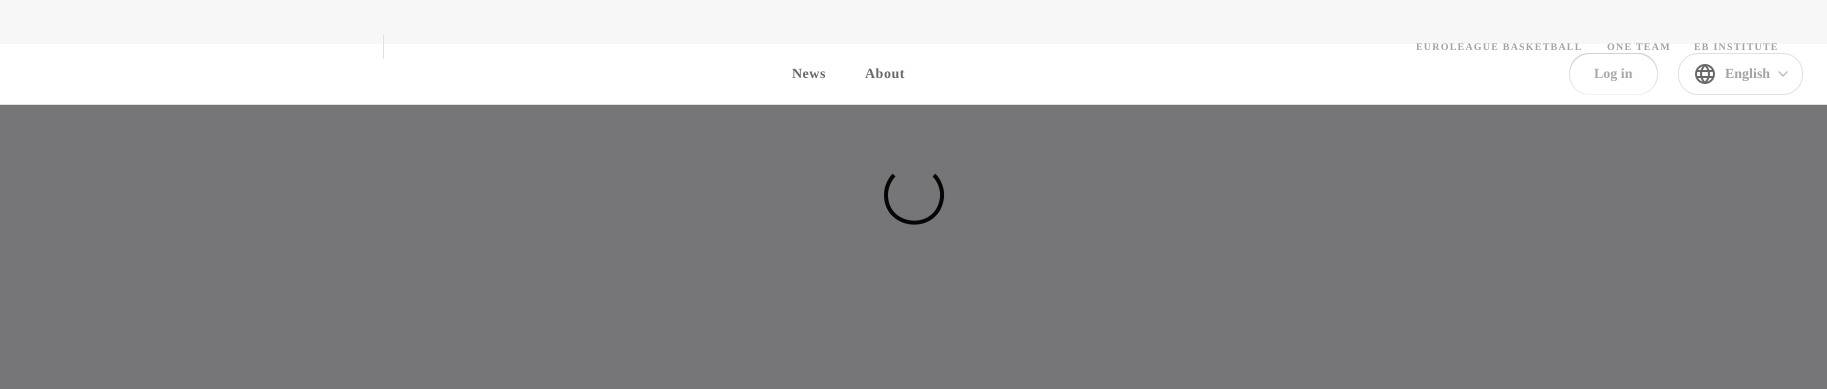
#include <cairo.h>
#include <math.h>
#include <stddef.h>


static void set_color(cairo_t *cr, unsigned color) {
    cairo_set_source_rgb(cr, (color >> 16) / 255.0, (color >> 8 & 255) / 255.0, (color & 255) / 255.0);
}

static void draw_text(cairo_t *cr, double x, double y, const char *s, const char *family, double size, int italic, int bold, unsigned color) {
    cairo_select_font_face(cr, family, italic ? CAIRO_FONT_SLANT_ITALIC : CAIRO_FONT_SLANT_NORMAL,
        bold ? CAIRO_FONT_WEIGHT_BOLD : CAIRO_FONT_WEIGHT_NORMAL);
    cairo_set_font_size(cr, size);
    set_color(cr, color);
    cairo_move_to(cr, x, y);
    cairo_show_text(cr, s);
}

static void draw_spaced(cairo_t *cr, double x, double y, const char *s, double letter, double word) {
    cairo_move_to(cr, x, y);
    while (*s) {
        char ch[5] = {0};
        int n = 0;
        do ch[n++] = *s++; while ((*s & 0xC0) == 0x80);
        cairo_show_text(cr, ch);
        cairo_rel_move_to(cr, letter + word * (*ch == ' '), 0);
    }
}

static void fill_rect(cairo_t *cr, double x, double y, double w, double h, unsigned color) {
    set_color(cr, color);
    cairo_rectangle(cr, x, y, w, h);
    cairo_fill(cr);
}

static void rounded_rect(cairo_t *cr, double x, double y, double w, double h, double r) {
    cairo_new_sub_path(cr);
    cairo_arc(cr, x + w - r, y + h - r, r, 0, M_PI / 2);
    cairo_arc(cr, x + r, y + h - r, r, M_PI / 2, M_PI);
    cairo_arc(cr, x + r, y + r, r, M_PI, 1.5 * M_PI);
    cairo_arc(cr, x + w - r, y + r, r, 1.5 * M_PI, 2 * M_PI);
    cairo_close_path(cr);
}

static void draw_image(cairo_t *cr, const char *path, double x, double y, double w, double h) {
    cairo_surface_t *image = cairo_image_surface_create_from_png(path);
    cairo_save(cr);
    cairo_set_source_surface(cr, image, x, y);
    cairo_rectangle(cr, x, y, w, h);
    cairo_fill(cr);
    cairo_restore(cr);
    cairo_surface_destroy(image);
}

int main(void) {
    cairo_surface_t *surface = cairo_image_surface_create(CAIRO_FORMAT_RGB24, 1827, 389);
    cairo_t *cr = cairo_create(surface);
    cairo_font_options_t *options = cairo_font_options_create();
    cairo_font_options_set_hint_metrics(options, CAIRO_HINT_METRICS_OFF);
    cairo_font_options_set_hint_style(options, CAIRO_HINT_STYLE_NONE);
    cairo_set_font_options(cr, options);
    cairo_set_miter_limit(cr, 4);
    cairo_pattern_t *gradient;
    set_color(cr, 0x767678);
    cairo_paint(cr);
    fill_rect(cr, 0, 0, 1827, 44, 0xF7F7F7);
    fill_rect(cr, 0, 44, 1827, 60, 0xFFFFFF);
    fill_rect(cr, 383, 35, 1, 24, 0xE0E0E0);
    cairo_select_font_face(cr, "Liberation Serif", CAIRO_FONT_SLANT_NORMAL, CAIRO_FONT_WEIGHT_BOLD);
    cairo_set_font_size(cr, 10);
    set_color(cr, 0xA3A3A3);
    draw_spaced(cr, 1416, 50, "EUROLEAGUE BASKETBALL", 1.2, 0);
    draw_spaced(cr, 1607, 50, "ONE TEAM", 1.2, 0);
    draw_spaced(cr, 1694, 50, "EB INSTITUTE", 1.2, 0);
    fill_rect(cr, 0, 104, 1827, 1, 0xE0E0E0);
    cairo_set_font_size(cr, 14);
    set_color(cr, 0x696969);
    draw_spaced(cr, 792, 78, "News", 0.5, 0);
    draw_spaced(cr, 865, 78, "About", 0.5, 0);
    gradient = cairo_pattern_create_linear(1614, 53, 1614, 95);
    cairo_pattern_add_color_stop_rgba(gradient, 0, 0.816, 0.816, 0.816, 1);
    cairo_pattern_add_color_stop_rgba(gradient, 1, 0.949, 0.949, 0.949, 1);
    cairo_set_source(cr, gradient);
    cairo_pattern_destroy(gradient);
    rounded_rect(cr, 1569, 53, 89, 42, 20);
    cairo_fill(cr);
    set_color(cr, 0xFFFFFF);
    rounded_rect(cr, 1570, 54, 87, 40, 20);
    cairo_fill(cr);
    draw_text(cr, 1594, 78, "Log in", "Liberation Serif", 14, 0, 1, 0xA9A9A9);
    rounded_rect(cr, 1678.5, 53.5, 124, 41, 19.5);
    set_color(cr, 0xE0E0E0);
    cairo_set_line_width(cr, 1);
    cairo_stroke(cr);
    draw_image(cr, "assets/img1.png", 1695, 64, 20, 20);
    draw_text(cr, 1725, 78, "English", "Liberation Serif", 14, 0, 1, 0xA3A3A3);
    draw_image(cr, "assets/img2.png", 1778, 71, 10, 6);
    cairo_new_path(cr);
    cairo_move_to(cr, 934, 175);
    cairo_curve_to(cr, 940.5, 182, 943.5, 191.5, 941.5, 200.5);
    cairo_curve_to(cr, 935, 233, 886, 228.5, 886, 195);
    cairo_curve_to(cr, 886, 187.5, 889, 180.5, 894, 175);
    set_color(cr, 0x050505);
    cairo_set_line_width(cr, 4);
    cairo_stroke(cr);
    cairo_surface_write_to_png(surface, "output.png");
    cairo_font_options_destroy(options);
    cairo_destroy(cr);
    cairo_surface_destroy(surface);
    return 0;
}
